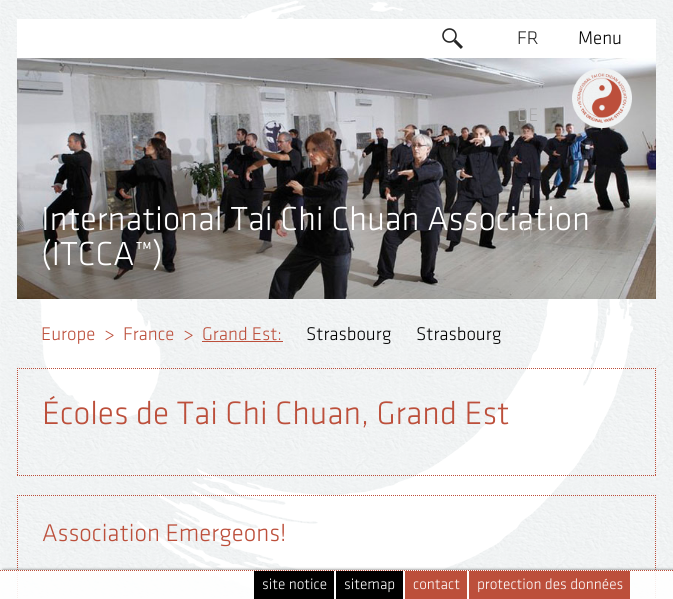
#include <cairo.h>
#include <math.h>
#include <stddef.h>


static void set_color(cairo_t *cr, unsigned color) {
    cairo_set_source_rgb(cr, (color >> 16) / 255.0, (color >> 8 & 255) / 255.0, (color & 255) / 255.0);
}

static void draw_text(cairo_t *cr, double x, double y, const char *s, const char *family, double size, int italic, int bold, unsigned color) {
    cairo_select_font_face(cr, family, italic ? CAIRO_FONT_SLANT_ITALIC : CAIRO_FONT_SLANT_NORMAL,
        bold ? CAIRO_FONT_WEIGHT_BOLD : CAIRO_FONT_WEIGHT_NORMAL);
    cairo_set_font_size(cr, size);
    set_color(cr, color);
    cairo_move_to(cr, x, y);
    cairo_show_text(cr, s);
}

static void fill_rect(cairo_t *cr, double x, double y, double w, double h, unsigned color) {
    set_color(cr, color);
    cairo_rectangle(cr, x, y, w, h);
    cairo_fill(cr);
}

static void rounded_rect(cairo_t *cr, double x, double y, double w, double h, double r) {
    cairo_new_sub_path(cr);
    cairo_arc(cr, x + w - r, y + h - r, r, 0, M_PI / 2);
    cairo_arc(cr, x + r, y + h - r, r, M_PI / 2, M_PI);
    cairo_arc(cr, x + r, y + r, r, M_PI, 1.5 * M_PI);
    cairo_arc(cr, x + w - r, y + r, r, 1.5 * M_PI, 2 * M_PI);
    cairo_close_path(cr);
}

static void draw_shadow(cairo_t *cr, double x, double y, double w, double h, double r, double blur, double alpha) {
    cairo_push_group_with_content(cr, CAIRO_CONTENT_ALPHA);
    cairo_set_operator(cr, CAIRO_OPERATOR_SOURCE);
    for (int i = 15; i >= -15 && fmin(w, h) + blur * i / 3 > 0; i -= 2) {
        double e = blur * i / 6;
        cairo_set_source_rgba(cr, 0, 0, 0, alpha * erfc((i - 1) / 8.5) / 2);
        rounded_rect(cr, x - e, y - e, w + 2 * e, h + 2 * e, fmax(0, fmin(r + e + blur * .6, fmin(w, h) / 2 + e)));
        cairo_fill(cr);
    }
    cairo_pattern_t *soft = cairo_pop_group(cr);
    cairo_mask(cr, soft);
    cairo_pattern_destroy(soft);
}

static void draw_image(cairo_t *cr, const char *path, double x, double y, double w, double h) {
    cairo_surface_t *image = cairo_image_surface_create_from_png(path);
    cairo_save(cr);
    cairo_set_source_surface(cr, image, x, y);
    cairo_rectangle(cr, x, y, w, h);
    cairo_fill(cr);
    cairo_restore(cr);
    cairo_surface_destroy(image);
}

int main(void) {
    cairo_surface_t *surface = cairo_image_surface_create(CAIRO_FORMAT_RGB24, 673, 599);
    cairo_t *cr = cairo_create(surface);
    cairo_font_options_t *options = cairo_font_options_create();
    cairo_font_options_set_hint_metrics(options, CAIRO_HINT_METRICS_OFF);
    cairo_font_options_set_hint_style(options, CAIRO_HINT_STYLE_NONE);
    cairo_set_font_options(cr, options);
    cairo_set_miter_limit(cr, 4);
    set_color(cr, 0xFFFFFF);
    cairo_paint(cr);
    draw_image(cr, "assets/img1.png", 0, 0, 673, 599);
    fill_rect(cr, 17, 19, 639, 39, 0xFFFFFF);
    draw_image(cr, "assets/img2.png", 442, 28, 21, 21);
    draw_text(cr, 517, 44, "FR", "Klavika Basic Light", 19, 0, 0, 0x262626);
    draw_image(cr, "assets/img3.png", 17, 58, 639, 241);
    draw_text(cr, 517, 121, "DE", "Klavika Basic Light", 19, 0, 0, 0xA9A9AA);
    draw_text(cr, 521, 198, "FI", "Klavika Basic Light", 19, 0, 0, 0x6F6D6E);
    draw_text(cr, 41, 230, "International Tai Chi Chuan Association", "Klavika Basic Light", 34.5, 0, 0, 0xFFFFFF);
    draw_text(cr, 521, 236, "IT", "Klavika Basic Light", 19, 0, 0, 0xACA8A4);
    draw_text(cr, 578, 44, "Menu", "Klavika Basic Light", 19, 0, 0, 0x000000);
    draw_image(cr, "assets/img4.png", 572, 68, 60, 60);
    draw_text(cr, 41, 265, "(ITCCA™)", "Klavika Basic Light", 34.5, 0, 0, 0xFFFFFF);
    draw_text(cr, 41, 340, "Europe", "Klavika Basic Light", 19, 0, 0, 0xBC4F3B);
    draw_text(cr, 104, 340, ">", "Klavika Basic Light", 19, 0, 0, 0xBC4F3B);
    draw_text(cr, 123, 340, "France", "Klavika Basic Light", 19, 0, 0, 0xBC4F3B);
    draw_text(cr, 183, 340, ">", "Klavika Basic Light", 19, 0, 0, 0xBC4F3B);
    draw_text(cr, 202, 340, "Grand Est:", "Klavika Basic Light", 19, 0, 0, 0xBC4F3B);
    fill_rect(cr, 202, 341, 81, 1, 0xBC4F3B);
    draw_text(cr, 306, 340, "Strasbourg", "Klavika Basic Light", 19, 0, 0, 0x000000);
    draw_text(cr, 416, 340, "Strasbourg", "Klavika Basic Light", 19, 0, 0, 0x000000);
    cairo_new_path(cr);
    cairo_move_to(cr, 17, 368.5);
    cairo_line_to(cr, 656, 368.5);
    set_color(cr, 0xBC4F3B);
    cairo_set_line_width(cr, 1);
    cairo_set_dash(cr, (double[]){1, 1}, 2, 0);
    cairo_stroke(cr);
    cairo_new_path(cr);
    cairo_move_to(cr, 655.5, 368);
    cairo_line_to(cr, 655.5, 476);
    cairo_stroke(cr);
    cairo_new_path(cr);
    cairo_move_to(cr, 17, 475.5);
    cairo_line_to(cr, 656, 475.5);
    cairo_stroke(cr);
    cairo_new_path(cr);
    cairo_move_to(cr, 17.5, 368);
    cairo_line_to(cr, 17.5, 476);
    cairo_stroke(cr);
    draw_text(cr, 42, 424, "Écoles de Tai Chi Chuan, Grand Est", "Klavika Basic Light", 33.6, 0, 0, 0xBC4F3B);
    cairo_new_path(cr);
    cairo_move_to(cr, 17, 495.5);
    cairo_line_to(cr, 656, 495.5);
    cairo_stroke(cr);
    cairo_new_path(cr);
    cairo_move_to(cr, 655.5, 495);
    cairo_line_to(cr, 655.5, 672);
    cairo_stroke(cr);
    cairo_new_path(cr);
    cairo_move_to(cr, 17.5, 495);
    cairo_line_to(cr, 17.5, 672);
    cairo_stroke(cr);
    draw_text(cr, 42, 541, "Association Emergeons!", "Klavika Basic Light", 25, 0, 0, 0xBC4F3B);
    cairo_save(cr);
    cairo_rectangle(cr, 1, 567, 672, 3);
    cairo_clip(cr);
    set_color(cr, 0x666666);
    draw_shadow(cr, 3, 570, 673, 29, 0, 1.5, 1);
    cairo_restore(cr);
    cairo_set_source_rgba(cr, 1, 1, 1, 0.9);
    cairo_rectangle(cr, 0, 570, 673, 29);
    cairo_fill(cr);
    cairo_new_path(cr);
    cairo_move_to(cr, 0, 570.5);
    cairo_line_to(cr, 673, 570.5);
    set_color(cr, 0xBC4F3B);
    cairo_stroke(cr);
    fill_rect(cr, 254, 571, 80, 28, 0x000000);
    draw_text(cr, 262, 589, "site notice", "Klavika Basic Light", 15.4, 0, 0, 0xFFFFFF);
    fill_rect(cr, 336, 571, 67, 28, 0x000000);
    draw_text(cr, 344, 589, "sitemap", "Klavika Basic Light", 15.4, 0, 0, 0xFFFFFF);
    fill_rect(cr, 405, 571, 62, 28, 0xBC4F3B);
    draw_text(cr, 413, 589, "contact", "Klavika Basic Light", 15.4, 0, 0, 0xFFFFFF);
    fill_rect(cr, 469, 571, 161, 28, 0xBC4F3B);
    draw_text(cr, 477, 589, "protection des données", "Klavika Basic Light", 15.4, 0, 0, 0xFFFFFF);
    cairo_surface_write_to_png(surface, "output.png");
    cairo_font_options_destroy(options);
    cairo_destroy(cr);
    cairo_surface_destroy(surface);
    return 0;
}
